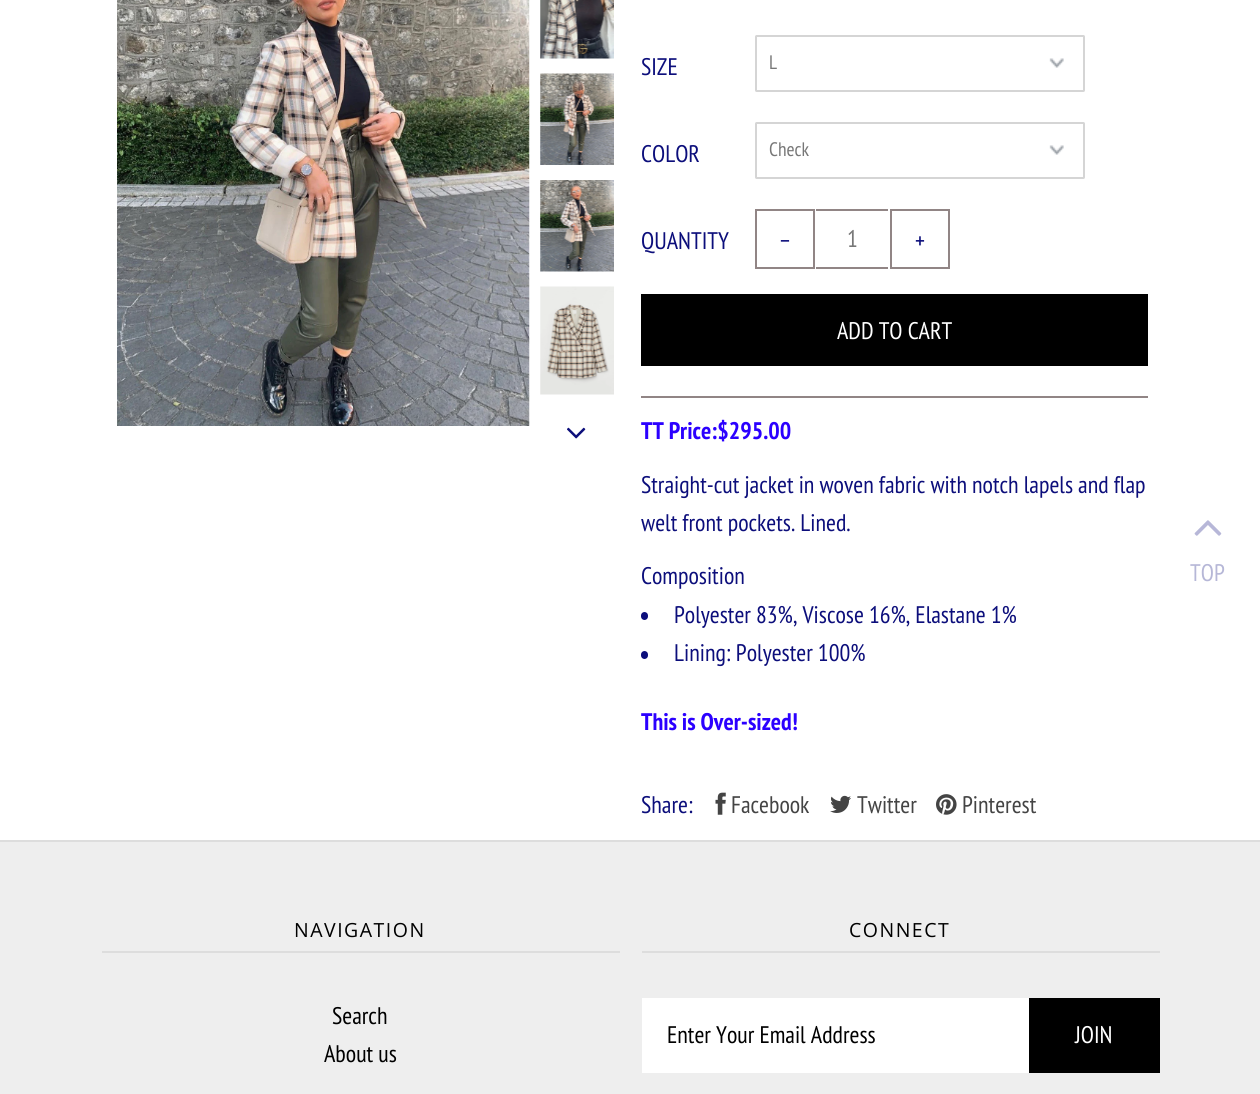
#include <cairo.h>
#include <math.h>
#include <stddef.h>


static void set_color(cairo_t *cr, unsigned color) {
    cairo_set_source_rgb(cr, (color >> 16) / 255.0, (color >> 8 & 255) / 255.0, (color & 255) / 255.0);
}

static void draw_text(cairo_t *cr, double x, double y, const char *s, const char *family, double size, int italic, int bold, unsigned color) {
    cairo_select_font_face(cr, family, italic ? CAIRO_FONT_SLANT_ITALIC : CAIRO_FONT_SLANT_NORMAL,
        bold ? CAIRO_FONT_WEIGHT_BOLD : CAIRO_FONT_WEIGHT_NORMAL);
    cairo_set_font_size(cr, size);
    set_color(cr, color);
    cairo_move_to(cr, x, y);
    cairo_show_text(cr, s);
}

static void draw_spaced(cairo_t *cr, double x, double y, const char *s, double letter, double word) {
    cairo_move_to(cr, x, y);
    while (*s) {
        char ch[5] = {0};
        int n = 0;
        do ch[n++] = *s++; while ((*s & 0xC0) == 0x80);
        cairo_show_text(cr, ch);
        cairo_rel_move_to(cr, letter + word * (*ch == ' '), 0);
    }
}

static void fill_rect(cairo_t *cr, double x, double y, double w, double h, unsigned color) {
    set_color(cr, color);
    cairo_rectangle(cr, x, y, w, h);
    cairo_fill(cr);
}

static void rounded_rect(cairo_t *cr, double x, double y, double w, double h, double r) {
    cairo_new_sub_path(cr);
    cairo_arc(cr, x + w - r, y + h - r, r, 0, M_PI / 2);
    cairo_arc(cr, x + r, y + h - r, r, M_PI / 2, M_PI);
    cairo_arc(cr, x + r, y + r, r, M_PI, 1.5 * M_PI);
    cairo_arc(cr, x + w - r, y + r, r, 1.5 * M_PI, 2 * M_PI);
    cairo_close_path(cr);
}

static void draw_image(cairo_t *cr, const char *path, double x, double y, double w, double h) {
    cairo_surface_t *image = cairo_image_surface_create_from_png(path);
    cairo_save(cr);
    cairo_set_source_surface(cr, image, x, y);
    cairo_rectangle(cr, x, y, w, h);
    cairo_fill(cr);
    cairo_restore(cr);
    cairo_surface_destroy(image);
}

int main(void) {
    cairo_surface_t *surface = cairo_image_surface_create(CAIRO_FORMAT_RGB24, 1260, 1094);
    cairo_t *cr = cairo_create(surface);
    cairo_font_options_t *options = cairo_font_options_create();
    cairo_font_options_set_hint_metrics(options, CAIRO_HINT_METRICS_OFF);
    cairo_font_options_set_hint_style(options, CAIRO_HINT_STYLE_NONE);
    cairo_set_font_options(cr, options);
    cairo_set_miter_limit(cr, 4);
    set_color(cr, 0xFFFFFF);
    cairo_paint(cr);
    draw_image(cr, "assets/img1.png", 117, 0, 413, 426);
    draw_image(cr, "assets/img2.png", 540, 0, 74, 59);
    draw_image(cr, "assets/img3.png", 540, 73, 74, 92);
    draw_image(cr, "assets/img4.png", 540, 180, 74, 92);
    draw_image(cr, "assets/img5.png", 540, 286, 74, 109);
    draw_image(cr, "assets/img6.png", 567, 427, 19, 12);
    fill_rect(cr, 641, 396, 507, 2, 0x918585);
    draw_text(cr, 641, 75, "SIZE", "PT Sans Narrow", 24, 0, 0, 0x0C0E7B);
    draw_image(cr, "assets/img7.png", 1049, 58, 15, 10);
    rounded_rect(cr, 756, 36, 328, 55, 0.5);
    set_color(cr, 0xD5D5D5);
    cairo_stroke(cr);
    draw_text(cr, 769, 69, "L", "PT Sans Narrow", 19.5, 0, 0, 0x777777);
    draw_text(cr, 641, 162, "COLOR", "PT Sans Narrow", 24, 0, 0, 0x0C0E7B);
    draw_image(cr, "assets/img7.png", 1049, 145, 15, 10);
    rounded_rect(cr, 756, 123, 328, 55, 0.5);
    set_color(cr, 0xD5D5D5);
    cairo_stroke(cr);
    draw_text(cr, 769, 156, "Check", "PT Sans Narrow", 19.5, 0, 0, 0x777777);
    draw_text(cr, 641, 249, "QUANTITY", "PT Sans Narrow", 24, 0, 0, 0x0C0E7B);
    cairo_rectangle(cr, 756, 210, 58, 58);
    set_color(cr, 0x918585);
    cairo_stroke(cr);
    draw_text(cr, 780, 249, "−", "PT Sans Narrow", 24, 0, 0, 0x0C0E7B);
    fill_rect(cr, 816, 209, 72, 2, 0x918585);
    fill_rect(cr, 816, 267, 72, 2, 0x918585);
    draw_text(cr, 847, 247, "1", "PT Sans Narrow", 24, 0, 0, 0x777777);
    cairo_rectangle(cr, 891, 210, 58, 58);
    set_color(cr, 0x918585);
    cairo_stroke(cr);
    draw_text(cr, 915, 249, "+", "PT Sans Narrow", 24, 0, 0, 0x0C0E7B);
    fill_rect(cr, 641, 294, 507, 72, 0x000000);
    draw_text(cr, 837, 339, "ADD TO CART", "PT Sans Narrow", 24, 0, 0, 0xFFFFFF);
    draw_text(cr, 641, 439, "TT Price:$295.00", "PT Sans Narrow", 24, 0, 1, 0x2B00FF);
    draw_text(cr, 641, 493, "Straight-cut jacket in woven fabric with notch lapels and flap", "PT Sans Narrow", 24, 0, 0, 0x0C0E7B);
    draw_text(cr, 641, 531, "welt front pockets. Lined.", "PT Sans Narrow", 24, 0, 0, 0x0C0E7B);
    draw_text(cr, 641, 584, "Composition", "PT Sans Narrow", 24, 0, 0, 0x0C0E7B);
    rounded_rect(cr, 641, 612, 7, 8, 3.5);
    cairo_fill(cr);
    draw_text(cr, 674, 623, "Polyester 83%, Viscose 16%, Elastane 1%", "PT Sans Narrow", 24, 0, 0, 0x0C0E7B);
    rounded_rect(cr, 641, 651, 7, 8, 3.5);
    cairo_fill(cr);
    draw_text(cr, 674, 661, "Lining: Polyester 100%", "PT Sans Narrow", 24, 0, 0, 0x0C0E7B);
    draw_text(cr, 641, 730, "This is Over-sized!", "PT Sans Narrow", 24, 0, 1, 0x2B00FF);
    draw_text(cr, 641, 813, "Share:", "PT Sans Narrow", 24, 0, 0, 0x0C0E7B);
    draw_image(cr, "assets/img8.png", 715, 792, 11, 23);
    draw_text(cr, 731, 813, "Facebook", "PT Sans Narrow", 24, 0, 0, 0x444444);
    draw_image(cr, "assets/img9.png", 830, 795, 21, 18);
    draw_text(cr, 857, 813, "Twitter", "PT Sans Narrow", 24, 0, 0, 0x444444);
    draw_image(cr, "assets/img10.png", 936, 794, 21, 21);
    draw_text(cr, 962, 813, "Pinterest", "PT Sans Narrow", 24, 0, 0, 0x444444);
    fill_rect(cr, 0, 842, 1260, 252, 0xEEEEEE);
    fill_rect(cr, 0, 840, 1260, 2, 0xDDDDDD);
    fill_rect(cr, 102, 951, 518, 2, 0xDDDDDD);
    cairo_select_font_face(cr, "Open Sans", CAIRO_FONT_SLANT_NORMAL, CAIRO_FONT_WEIGHT_NORMAL);
    cairo_set_font_size(cr, 19.5);
    set_color(cr, 0x000000);
    draw_spaced(cr, 294, 937, "NAVIGATION", 1.5, 0);
    draw_text(cr, 332, 1024, "Search", "PT Sans Narrow", 24, 0, 0, 0x000000);
    draw_text(cr, 324, 1062, "About us", "PT Sans Narrow", 24, 0, 0, 0x000000);
    fill_rect(cr, 642, 951, 518, 2, 0xDDDDDD);
    cairo_select_font_face(cr, "Open Sans", CAIRO_FONT_SLANT_NORMAL, CAIRO_FONT_WEIGHT_NORMAL);
    cairo_set_font_size(cr, 19.5);
    set_color(cr, 0x000000);
    draw_spaced(cr, 849, 937, "CONNECT", 1.5, 0);
    fill_rect(cr, 642, 998, 387, 75, 0xFFFFFF);
    draw_text(cr, 667, 1043, "Enter Your Email Address", "PT Sans Narrow", 24, 0, 0, 0x000000);
    fill_rect(cr, 1029, 998, 131, 75, 0x000000);
    draw_text(cr, 1075, 1043, "JOIN", "PT Sans Narrow", 24, 0, 0, 0xFFFFFF);
    draw_image(cr, "assets/img11.png", 1194, 520, 28, 16);
    draw_text(cr, 1190, 581, "TOP", "PT Sans Narrow", 24, 0, 0, 0xB6B7D7);
    cairo_surface_write_to_png(surface, "output.png");
    cairo_font_options_destroy(options);
    cairo_destroy(cr);
    cairo_surface_destroy(surface);
    return 0;
}
